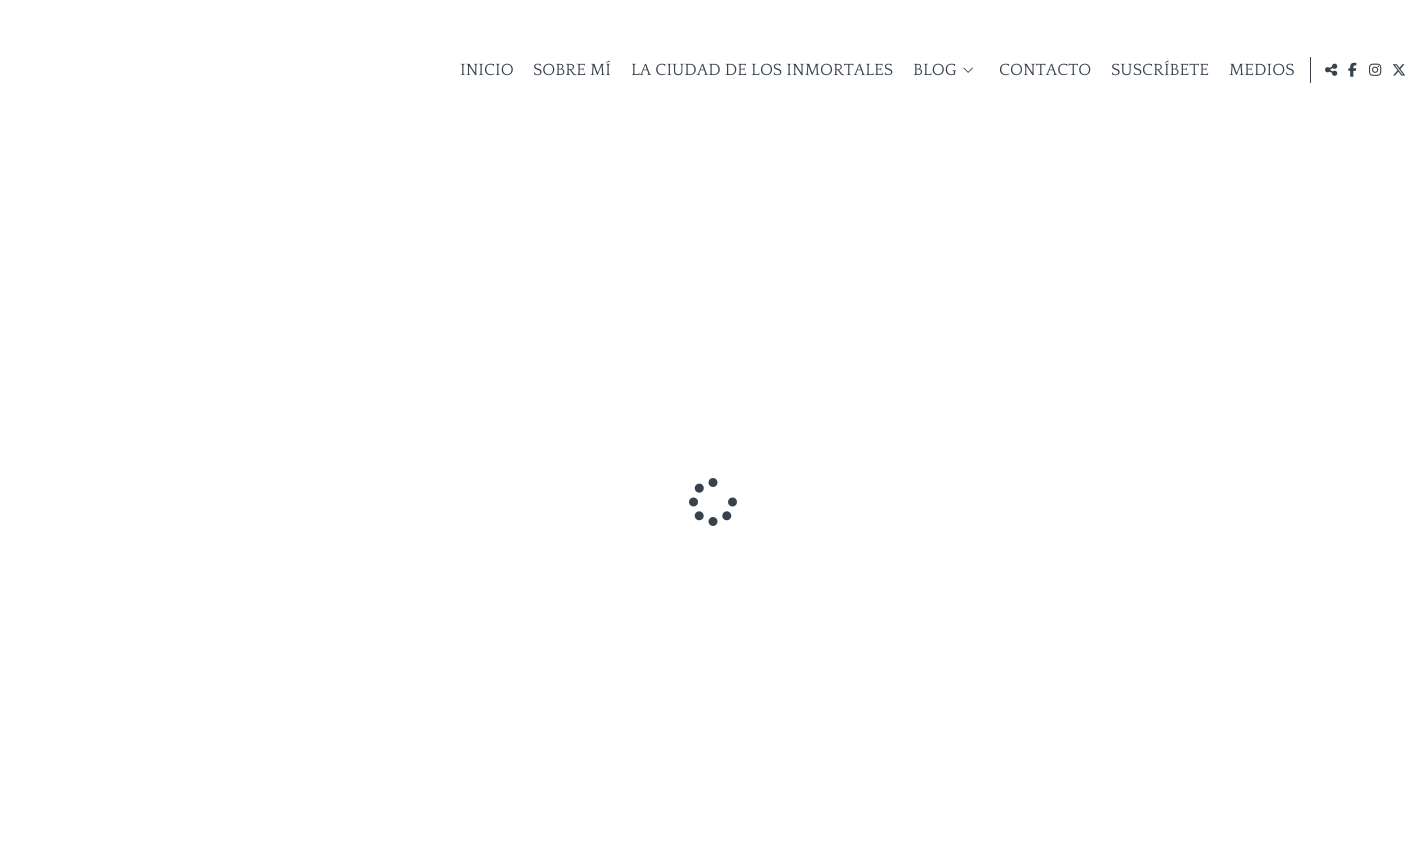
#include <cairo.h>
#include <math.h>
#include <stddef.h>


static void set_color(cairo_t *cr, unsigned color) {
    cairo_set_source_rgb(cr, (color >> 16) / 255.0, (color >> 8 & 255) / 255.0, (color & 255) / 255.0);
}

static void draw_text(cairo_t *cr, double x, double y, const char *s, const char *family, double size, int italic, int bold, unsigned color) {
    cairo_select_font_face(cr, family, italic ? CAIRO_FONT_SLANT_ITALIC : CAIRO_FONT_SLANT_NORMAL,
        bold ? CAIRO_FONT_WEIGHT_BOLD : CAIRO_FONT_WEIGHT_NORMAL);
    cairo_set_font_size(cr, size);
    set_color(cr, color);
    cairo_move_to(cr, x, y);
    cairo_show_text(cr, s);
}

static void fill_rect(cairo_t *cr, double x, double y, double w, double h, unsigned color) {
    set_color(cr, color);
    cairo_rectangle(cr, x, y, w, h);
    cairo_fill(cr);
}

static void draw_image(cairo_t *cr, const char *path, double x, double y, double w, double h) {
    cairo_surface_t *image = cairo_image_surface_create_from_png(path);
    cairo_save(cr);
    cairo_set_source_surface(cr, image, x, y);
    cairo_rectangle(cr, x, y, w, h);
    cairo_fill(cr);
    cairo_restore(cr);
    cairo_surface_destroy(image);
}

int main(void) {
    cairo_surface_t *surface = cairo_image_surface_create(CAIRO_FORMAT_RGB24, 1425, 864);
    cairo_t *cr = cairo_create(surface);
    cairo_font_options_t *options = cairo_font_options_create();
    cairo_font_options_set_hint_metrics(options, CAIRO_HINT_METRICS_OFF);
    cairo_font_options_set_hint_style(options, CAIRO_HINT_STYLE_NONE);
    cairo_set_font_options(cr, options);
    cairo_set_miter_limit(cr, 4);
    set_color(cr, 0xFFFFFF);
    cairo_paint(cr);
    draw_text(cr, 460, 75, "INICIO", "Quattrocento", 17, 0, 0, 0x39414A);
    draw_text(cr, 533, 75, "SOBRE MÍ", "Quattrocento", 17, 0, 0, 0x39414A);
    draw_text(cr, 631, 75, "LA CIUDAD DE LOS INMORTALES", "Quattrocento", 17, 0, 0, 0x39414A);
    draw_text(cr, 913, 75, "BLOG", "Quattrocento", 17, 0, 0, 0x39414A);
    draw_image(cr, "assets/img1.png", 963, 67, 10, 6);
    draw_text(cr, 999, 75, "CONTACTO", "Quattrocento", 17, 0, 0, 0x39414A);
    draw_text(cr, 1111, 75, "SUSCRÍBETE", "Quattrocento", 17, 0, 0, 0x39414A);
    draw_text(cr, 1229, 75, "MEDIOS", "Quattrocento", 17, 0, 0, 0x39414A);
    fill_rect(cr, 1310, 57, 1, 26, 0x39414A);
    draw_image(cr, "assets/img2.png", 1325, 63, 13, 13);
    draw_image(cr, "assets/img3.png", 1348, 62, 9, 15);
    draw_image(cr, "assets/img4.png", 1369, 63, 13, 13);
    draw_image(cr, "assets/img5.png", 1392, 64, 14, 12);
    draw_image(cr, "assets/img6.png", 689, 478, 48, 48);
    cairo_surface_write_to_png(surface, "output.png");
    cairo_font_options_destroy(options);
    cairo_destroy(cr);
    cairo_surface_destroy(surface);
    return 0;
}
